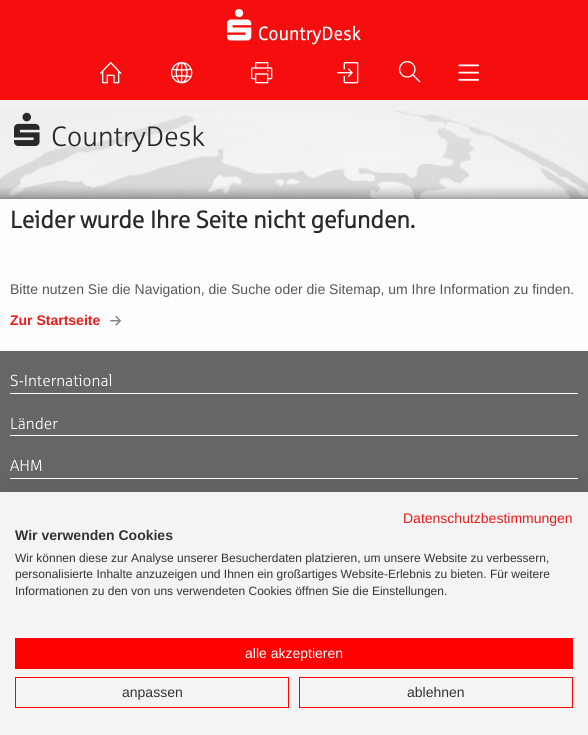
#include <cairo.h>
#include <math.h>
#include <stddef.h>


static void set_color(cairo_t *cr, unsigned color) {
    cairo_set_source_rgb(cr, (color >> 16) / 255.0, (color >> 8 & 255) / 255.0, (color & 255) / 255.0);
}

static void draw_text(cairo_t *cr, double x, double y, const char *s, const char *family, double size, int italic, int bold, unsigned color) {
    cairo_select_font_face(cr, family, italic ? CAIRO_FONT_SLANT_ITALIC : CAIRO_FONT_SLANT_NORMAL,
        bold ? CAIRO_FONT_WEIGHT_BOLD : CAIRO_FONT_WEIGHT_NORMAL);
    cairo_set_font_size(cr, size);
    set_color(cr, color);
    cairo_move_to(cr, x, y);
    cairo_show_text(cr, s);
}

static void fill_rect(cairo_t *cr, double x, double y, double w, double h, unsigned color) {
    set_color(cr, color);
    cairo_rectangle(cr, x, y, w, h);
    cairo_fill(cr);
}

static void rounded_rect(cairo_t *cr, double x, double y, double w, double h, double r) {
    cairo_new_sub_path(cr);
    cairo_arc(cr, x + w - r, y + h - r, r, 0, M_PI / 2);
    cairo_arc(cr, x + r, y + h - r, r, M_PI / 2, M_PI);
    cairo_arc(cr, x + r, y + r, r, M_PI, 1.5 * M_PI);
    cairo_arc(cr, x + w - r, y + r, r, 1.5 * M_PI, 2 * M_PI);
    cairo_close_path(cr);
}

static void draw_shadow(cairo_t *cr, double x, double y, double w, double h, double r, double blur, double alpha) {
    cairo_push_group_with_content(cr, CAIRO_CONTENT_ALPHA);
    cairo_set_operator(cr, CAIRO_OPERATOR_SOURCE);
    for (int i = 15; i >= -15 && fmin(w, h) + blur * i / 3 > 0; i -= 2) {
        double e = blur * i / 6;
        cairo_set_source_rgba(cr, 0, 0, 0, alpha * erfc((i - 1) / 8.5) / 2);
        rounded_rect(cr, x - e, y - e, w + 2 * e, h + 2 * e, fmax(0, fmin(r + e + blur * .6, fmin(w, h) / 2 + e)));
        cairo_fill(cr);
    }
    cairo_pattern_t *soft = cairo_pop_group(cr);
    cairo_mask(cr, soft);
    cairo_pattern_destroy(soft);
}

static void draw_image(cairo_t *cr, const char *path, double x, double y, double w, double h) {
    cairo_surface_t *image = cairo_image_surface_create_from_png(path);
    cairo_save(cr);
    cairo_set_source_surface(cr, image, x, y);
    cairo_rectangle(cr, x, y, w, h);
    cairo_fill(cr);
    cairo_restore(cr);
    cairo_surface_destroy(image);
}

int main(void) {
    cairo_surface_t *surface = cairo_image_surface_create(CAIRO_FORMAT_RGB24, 588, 735);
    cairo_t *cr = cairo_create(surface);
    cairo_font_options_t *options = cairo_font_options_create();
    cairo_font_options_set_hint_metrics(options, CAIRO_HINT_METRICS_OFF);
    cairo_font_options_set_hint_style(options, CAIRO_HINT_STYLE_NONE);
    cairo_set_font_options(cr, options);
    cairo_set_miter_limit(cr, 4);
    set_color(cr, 0xF1F1F1);
    cairo_paint(cr);
    fill_rect(cr, 0, 0, 588, 100, 0xF60E0E);
    draw_image(cr, "assets/img1.png", 227, 9, 134, 36);
    draw_image(cr, "assets/img2.png", 100, 62, 22, 22);
    draw_image(cr, "assets/img3.png", 171, 62, 22, 22);
    draw_image(cr, "assets/img4.png", 251, 62, 22, 22);
    draw_image(cr, "assets/img5.png", 337, 62, 22, 22);
    draw_image(cr, "assets/img6.png", 399, 61, 22, 22);
    draw_image(cr, "assets/img7.png", 458, 64, 22, 17);
    fill_rect(cr, 0, 110, 588, 1, 0xEDEDED);
    draw_image(cr, "assets/img8.png", 0, 111, 588, 88);
    draw_text(cr, 14, 146, "S", "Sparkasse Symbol", 22, 0, 0, 0x292929);
    draw_text(cr, 51, 146, "CountryDesk", "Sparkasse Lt", 28, 0, 0, 0x292929);
    fill_rect(cr, 0, 199, 588, 152, 0xFEFEFE);
    draw_text(cr, 10, 228, "Leider wurde Ihre Seite nicht gefunden.", "Sparkasse Lt", 24, 0, 1, 0x292929);
    draw_text(cr, 10, 294, "Bitte nutzen Sie die Navigation, die Suche oder die Sitemap, um Ihre Information zu finden.", "Liberation Sans", 14, 0, 0, 0x565656);
    draw_text(cr, 10, 325, "Zur Startseite", "Liberation Sans", 14, 0, 1, 0xEE1919);
    draw_image(cr, "assets/img9.png", 110, 315, 12, 11);
    fill_rect(cr, 0, 351, 588, 141, 0x666666);
    fill_rect(cr, 10, 393, 568, 1, 0xFFFFFF);
    draw_text(cr, 10, 386, "S-International", "Sparkasse Lt", 16, 0, 0, 0xFFFFFF);
    fill_rect(cr, 10, 435, 568, 1, 0xFFFFFF);
    draw_text(cr, 10, 429, "Länder", "Sparkasse Lt", 16, 0, 0, 0xFFFFFF);
    fill_rect(cr, 10, 478, 568, 1, 0xFFFFFF);
    draw_text(cr, 10, 471, "AHM", "Sparkasse Lt", 16, 0, 0, 0xFFFFFF);
    set_color(cr, 0x000000);
    draw_shadow(cr, 0, 492, 588, 243, 0, 12, 0.1);
    fill_rect(cr, 0, 492, 588, 243, 0xF4F4F4);
    draw_text(cr, 403, 523, "Datenschutzbestimmungen", "Liberation Sans", 14, 0, 0, 0xEE1919);
    draw_text(cr, 15, 540, "Wir verwenden Cookies", "Liberation Sans", 14, 0, 1, 0x333333);
    draw_text(cr, 15, 562, "Wir können diese zur Analyse unserer Besucherdaten platzieren, um unsere Website zu verbessern,", "Liberation Sans", 12, 0, 0, 0x333333);
    draw_text(cr, 15, 578, "personalisierte Inhalte anzuzeigen und Ihnen ein großartiges Website-Erlebnis zu bieten. Für weitere", "Liberation Sans", 12, 0, 0, 0x333333);
    draw_text(cr, 15, 595, "Informationen zu den von uns verwendeten Cookies öffnen Sie die Einstellungen.", "Liberation Sans", 12, 0, 0, 0x333333);
    fill_rect(cr, 15, 638, 558, 31, 0xFE0000);
    draw_text(cr, 245, 658, "alle akzeptieren", "Liberation Sans", 14, 0, 0, 0xFFFFFF);
    cairo_rectangle(cr, 15.5, 677.5, 273, 30);
    set_color(cr, 0xFE0000);
    cairo_set_line_width(cr, 1);
    cairo_stroke(cr);
    draw_text(cr, 122, 697, "anpassen", "Liberation Sans", 14, 0, 0, 0x333333);
    cairo_rectangle(cr, 299.5, 677.5, 273, 30);
    set_color(cr, 0xFE0000);
    cairo_stroke(cr);
    draw_text(cr, 407, 697, "ablehnen", "Liberation Sans", 14, 0, 0, 0x333333);
    cairo_surface_write_to_png(surface, "output.png");
    cairo_font_options_destroy(options);
    cairo_destroy(cr);
    cairo_surface_destroy(surface);
    return 0;
}
